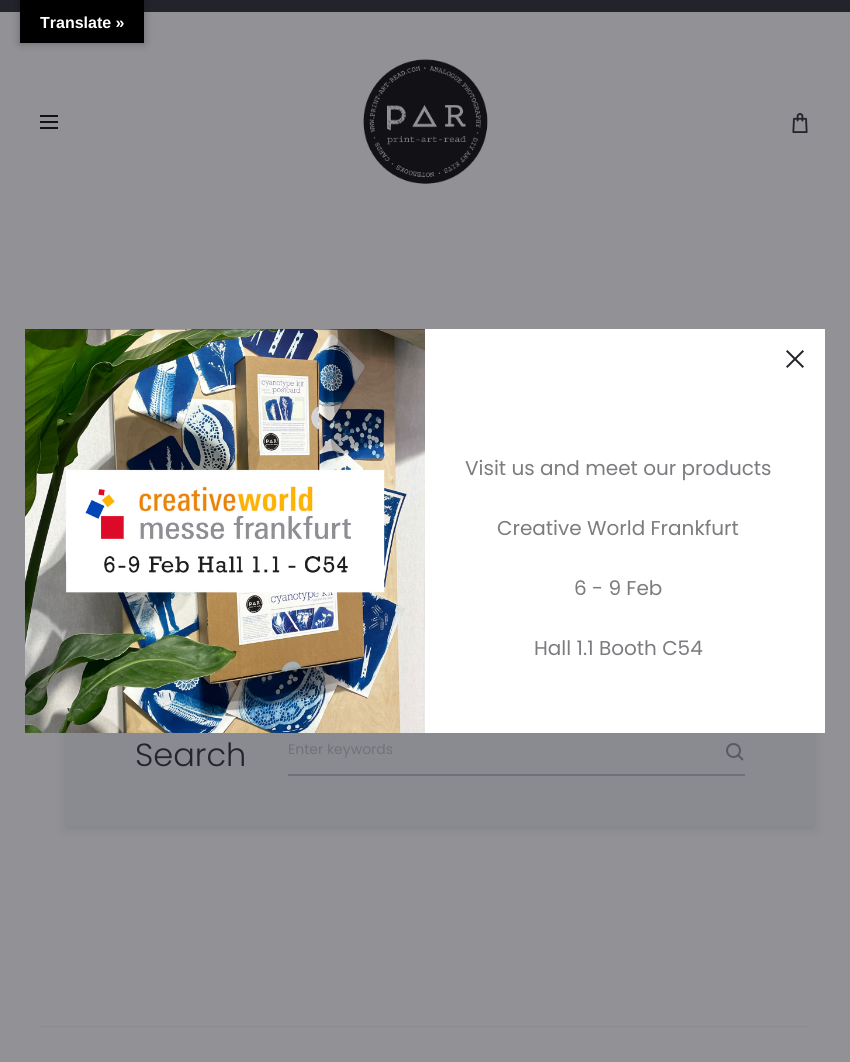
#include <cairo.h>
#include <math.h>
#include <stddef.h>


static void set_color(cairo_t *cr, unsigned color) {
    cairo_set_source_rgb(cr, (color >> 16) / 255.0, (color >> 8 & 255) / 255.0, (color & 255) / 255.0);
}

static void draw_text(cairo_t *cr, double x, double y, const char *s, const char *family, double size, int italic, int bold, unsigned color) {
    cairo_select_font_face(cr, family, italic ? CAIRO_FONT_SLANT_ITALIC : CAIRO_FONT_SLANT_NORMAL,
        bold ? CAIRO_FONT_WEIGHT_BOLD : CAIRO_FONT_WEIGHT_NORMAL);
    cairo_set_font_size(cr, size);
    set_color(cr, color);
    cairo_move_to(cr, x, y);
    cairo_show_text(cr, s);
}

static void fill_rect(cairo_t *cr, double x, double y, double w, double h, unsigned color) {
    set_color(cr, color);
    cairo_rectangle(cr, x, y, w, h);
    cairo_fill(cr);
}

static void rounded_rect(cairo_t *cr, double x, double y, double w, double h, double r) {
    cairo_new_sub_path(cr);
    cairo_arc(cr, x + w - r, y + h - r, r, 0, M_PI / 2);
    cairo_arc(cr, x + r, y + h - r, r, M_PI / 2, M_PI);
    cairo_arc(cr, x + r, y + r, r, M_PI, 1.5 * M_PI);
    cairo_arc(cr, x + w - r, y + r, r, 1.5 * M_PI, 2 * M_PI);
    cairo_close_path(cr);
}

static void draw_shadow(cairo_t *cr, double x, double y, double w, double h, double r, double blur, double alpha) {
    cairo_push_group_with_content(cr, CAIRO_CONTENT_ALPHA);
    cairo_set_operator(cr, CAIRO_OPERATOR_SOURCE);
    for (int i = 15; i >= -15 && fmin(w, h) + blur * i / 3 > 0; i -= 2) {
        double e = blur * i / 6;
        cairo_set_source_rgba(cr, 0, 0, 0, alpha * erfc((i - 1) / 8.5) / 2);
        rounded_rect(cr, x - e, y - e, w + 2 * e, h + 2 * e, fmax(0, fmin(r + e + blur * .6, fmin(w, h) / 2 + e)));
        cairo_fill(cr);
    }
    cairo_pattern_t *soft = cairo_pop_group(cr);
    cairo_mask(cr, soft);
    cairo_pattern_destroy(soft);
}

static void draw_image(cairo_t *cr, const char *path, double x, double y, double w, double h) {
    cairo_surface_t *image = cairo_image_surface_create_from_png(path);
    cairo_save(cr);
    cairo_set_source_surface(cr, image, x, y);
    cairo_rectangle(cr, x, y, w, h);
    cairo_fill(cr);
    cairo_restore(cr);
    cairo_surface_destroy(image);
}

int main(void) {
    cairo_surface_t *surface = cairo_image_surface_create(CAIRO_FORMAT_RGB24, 850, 1062);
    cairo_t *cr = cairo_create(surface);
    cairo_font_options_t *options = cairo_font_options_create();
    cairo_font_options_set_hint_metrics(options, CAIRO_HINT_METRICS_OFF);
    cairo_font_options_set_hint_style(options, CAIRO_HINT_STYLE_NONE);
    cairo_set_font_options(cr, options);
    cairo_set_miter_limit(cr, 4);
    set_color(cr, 0x919196);
    cairo_paint(cr);
    fill_rect(cr, 0, 0, 850, 12, 0x23232C);
    set_color(cr, 0x000000);
    draw_shadow(cr, 20, 0, 124, 43, 0, 4.5, 0.3);
    fill_rect(cr, 20, 0, 124, 43, 0x000000);
    draw_text(cr, 40, 28, "Translate »", "Liberation Sans", 16, 0, 1, 0xFFFFFF);
    set_color(cr, 0x131318);
    draw_shadow(cr, 65, 436, 750, 394, 0, 5, 0.1);
    fill_rect(cr, 425, 329, 400, 404, 0xFFFFFF);
    draw_image(cr, "assets/img1.png", 786, 350, 18, 18);
    draw_image(cr, "assets/img2.png", 25, 329, 400, 404);
    draw_text(cr, 465, 475, "Visit us and meet our products", "Poppins", 20, 0, 0, 0x7C7C80);
    draw_text(cr, 497, 535, "Creative World Frankfurt", "Poppins", 20, 0, 0, 0x7C7C80);
    draw_text(cr, 574, 595, "6 - 9 Feb", "Poppins", 20, 0, 0, 0x7C7C80);
    draw_text(cr, 534, 655, "Hall 1.1 Booth C54", "Poppins", 20, 0, 0, 0x7C7C80);
    fill_rect(cr, 40, 121, 18, 2, 0x121216);
    fill_rect(cr, 40, 115, 18, 2, 0x121216);
    fill_rect(cr, 40, 127, 18, 2, 0x121216);
    draw_image(cr, "assets/img3.png", 363, 59, 125, 125);
    draw_image(cr, "assets/img4.png", 792, 113, 16, 20);
    fill_rect(cr, 67, 733, 746, 93, 0x8A8B90);
    draw_text(cr, 135, 766, "Search", "Poppins Light", 32, 0, 0, 0x23232C);
    fill_rect(cr, 288, 774, 457, 2, 0x71717A);
    draw_text(cr, 288, 754, "Enter keywords", "Poppins", 14, 0, 0, 0x71717A);
    cairo_new_path(cr);
    cairo_arc(cr, 733.5, 750.5, 6.5, 0, 2 * M_PI);
    set_color(cr, 0x5A5A62);
    cairo_stroke(cr);
    cairo_new_path(cr);
    cairo_move_to(cr, 738, 755);
    cairo_line_to(cr, 743, 760);
    cairo_stroke(cr);
    fill_rect(cr, 40, 1026, 770, 1, 0x8A8B90);
    cairo_surface_write_to_png(surface, "output.png");
    cairo_font_options_destroy(options);
    cairo_destroy(cr);
    cairo_surface_destroy(surface);
    return 0;
}
